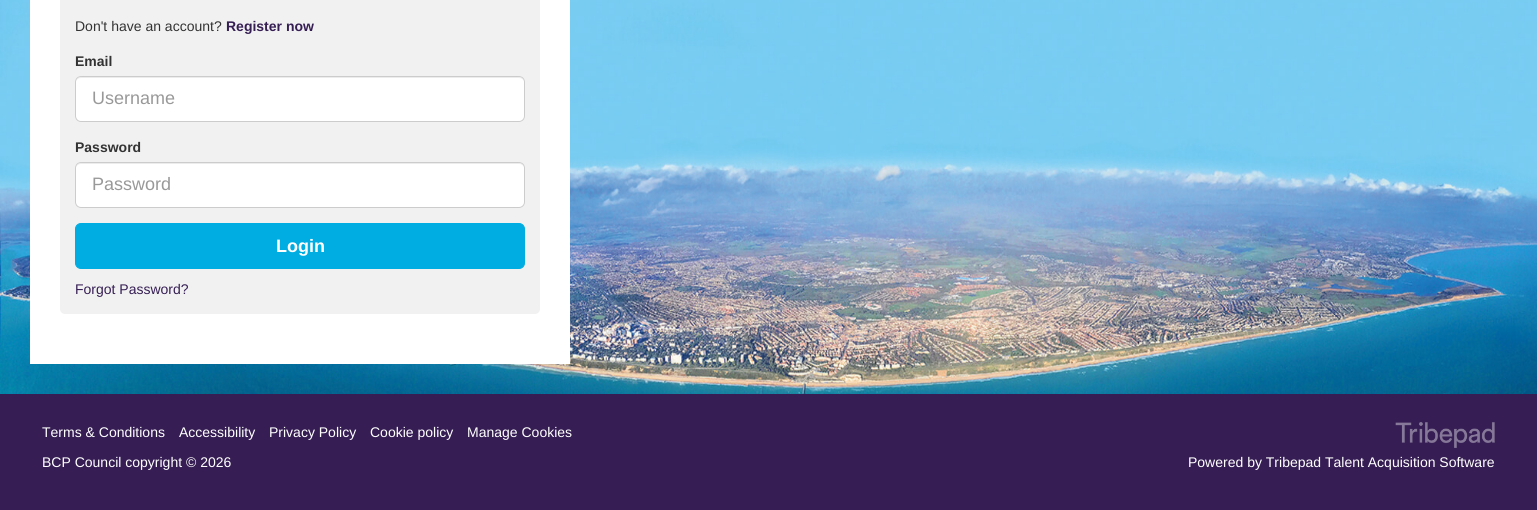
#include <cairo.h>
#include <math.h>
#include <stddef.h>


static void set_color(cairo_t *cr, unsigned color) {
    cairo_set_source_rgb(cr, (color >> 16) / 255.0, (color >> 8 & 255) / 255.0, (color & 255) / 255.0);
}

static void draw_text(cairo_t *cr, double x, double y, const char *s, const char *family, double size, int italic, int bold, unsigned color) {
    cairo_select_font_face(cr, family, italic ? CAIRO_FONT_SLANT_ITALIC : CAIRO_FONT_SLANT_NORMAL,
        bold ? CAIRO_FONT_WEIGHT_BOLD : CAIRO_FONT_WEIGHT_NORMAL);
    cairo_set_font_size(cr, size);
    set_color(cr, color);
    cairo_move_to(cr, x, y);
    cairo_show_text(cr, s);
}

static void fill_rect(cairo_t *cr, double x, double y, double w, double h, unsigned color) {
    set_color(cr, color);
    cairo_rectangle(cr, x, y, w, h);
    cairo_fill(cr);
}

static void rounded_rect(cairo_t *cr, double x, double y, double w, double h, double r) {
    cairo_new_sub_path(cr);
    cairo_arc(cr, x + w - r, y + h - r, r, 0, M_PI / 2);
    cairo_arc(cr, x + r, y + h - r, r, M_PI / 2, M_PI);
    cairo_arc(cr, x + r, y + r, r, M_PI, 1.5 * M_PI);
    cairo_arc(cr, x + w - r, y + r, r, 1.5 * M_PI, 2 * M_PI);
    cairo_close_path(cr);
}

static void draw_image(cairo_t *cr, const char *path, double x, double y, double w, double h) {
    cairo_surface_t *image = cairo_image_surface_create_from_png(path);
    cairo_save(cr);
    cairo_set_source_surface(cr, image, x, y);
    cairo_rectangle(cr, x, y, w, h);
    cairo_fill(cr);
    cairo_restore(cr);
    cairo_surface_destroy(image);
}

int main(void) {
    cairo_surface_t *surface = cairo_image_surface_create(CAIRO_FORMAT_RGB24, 1537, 510);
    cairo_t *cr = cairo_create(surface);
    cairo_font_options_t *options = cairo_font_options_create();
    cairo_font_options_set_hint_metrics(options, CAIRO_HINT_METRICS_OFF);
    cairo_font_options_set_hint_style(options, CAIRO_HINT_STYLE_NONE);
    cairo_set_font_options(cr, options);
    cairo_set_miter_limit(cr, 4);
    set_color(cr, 0xFFFFFF);
    cairo_paint(cr);
    draw_image(cr, "assets/img1.png", 0, 0, 1537, 394);
    fill_rect(cr, 30, 0, 540, 364, 0xFFFFFF);
    set_color(cr, 0xF1F1F1);
    rounded_rect(cr, 60, -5, 480, 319, 5);
    cairo_fill(cr);
    draw_text(cr, 75, 31, "Don't have an account?", "Liberation Sans", 14, 0, 0, 0x333333);
    draw_text(cr, 226, 31, "Register now", "Liberation Sans", 14, 0, 1, 0x361E54);
    draw_text(cr, 75, 66, "Email", "Liberation Sans", 14, 0, 1, 0x333333);
    set_color(cr, 0xFFFFFF);
    rounded_rect(cr, 75, 76, 450, 46, 6);
    cairo_fill(cr);
    set_color(cr, 0xECECEC);
    cairo_new_path(cr);
    cairo_move_to(cr, 81, 78);
    cairo_line_to(cr, 519, 78);
    cairo_curve_to(cr, 522, 78, 524, 80, 524, 83);
    cairo_curve_to(cr, 524, 80, 522, 77, 519, 77);
    cairo_line_to(cr, 81, 77);
    cairo_curve_to(cr, 78, 77, 76, 80, 76, 83);
    cairo_curve_to(cr, 76, 80, 78, 78, 81, 78);
    cairo_close_path(cr);
    cairo_fill(cr);
    rounded_rect(cr, 75.5, 76.5, 449, 45, 5.5);
    set_color(cr, 0xCCCCCC);
    cairo_set_line_width(cr, 1);
    cairo_stroke(cr);
    draw_text(cr, 92, 104, "Username", "Liberation Sans", 18, 0, 0, 0x999999);
    draw_text(cr, 75, 152, "Password", "Liberation Sans", 14, 0, 1, 0x333333);
    set_color(cr, 0xFFFFFF);
    rounded_rect(cr, 75, 162, 450, 46, 6);
    cairo_fill(cr);
    set_color(cr, 0xECECEC);
    cairo_new_path(cr);
    cairo_move_to(cr, 81, 164);
    cairo_line_to(cr, 519, 164);
    cairo_curve_to(cr, 522, 164, 524, 166, 524, 169);
    cairo_curve_to(cr, 524, 166, 522, 163, 519, 163);
    cairo_line_to(cr, 81, 163);
    cairo_curve_to(cr, 78, 163, 76, 166, 76, 169);
    cairo_curve_to(cr, 76, 166, 78, 164, 81, 164);
    cairo_close_path(cr);
    cairo_fill(cr);
    rounded_rect(cr, 75.5, 162.5, 449, 45, 5.5);
    set_color(cr, 0xCCCCCC);
    cairo_stroke(cr);
    draw_text(cr, 92, 190, "Password", "Liberation Sans", 18, 0, 0, 0x999999);
    set_color(cr, 0x00ADE2);
    rounded_rect(cr, 75.5, 223.5, 449, 45, 5.5);
    cairo_fill_preserve(cr);
    cairo_stroke(cr);
    draw_text(cr, 276, 252, "Login", "Liberation Sans", 18, 0, 1, 0xFFFFFF);
    draw_text(cr, 75, 294, "Forgot Password?", "Liberation Sans", 14, 0, 0, 0x361E54);
    fill_rect(cr, 0, 394, 1537, 116, 0x361E54);
    draw_text(cr, 42, 437, "Terms & Conditions", "Liberation Sans", 14, 0, 0, 0xFFFFFF);
    draw_text(cr, 179, 437, "Accessibility", "Liberation Sans", 14, 0, 0, 0xFFFFFF);
    draw_text(cr, 269, 437, "Privacy Policy", "Liberation Sans", 14, 0, 0, 0xFFFFFF);
    draw_text(cr, 370, 437, "Cookie policy", "Liberation Sans", 14, 0, 0, 0xFFFFFF);
    draw_text(cr, 467, 437, "Manage Cookies", "Liberation Sans", 14, 0, 0, 0xFFFFFF);
    draw_text(cr, 42, 467, "BCP Council copyright © 2026", "Liberation Sans", 14, 0, 0, 0xFFFFFF);
    draw_image(cr, "assets/img2.png", 1395, 422, 100, 26);
    draw_text(cr, 1188, 467, "Powered by Tribepad Talent Acquisition Software", "Liberation Sans", 14, 0, 0, 0xFFFFFF);
    cairo_surface_write_to_png(surface, "output.png");
    cairo_font_options_destroy(options);
    cairo_destroy(cr);
    cairo_surface_destroy(surface);
    return 0;
}
